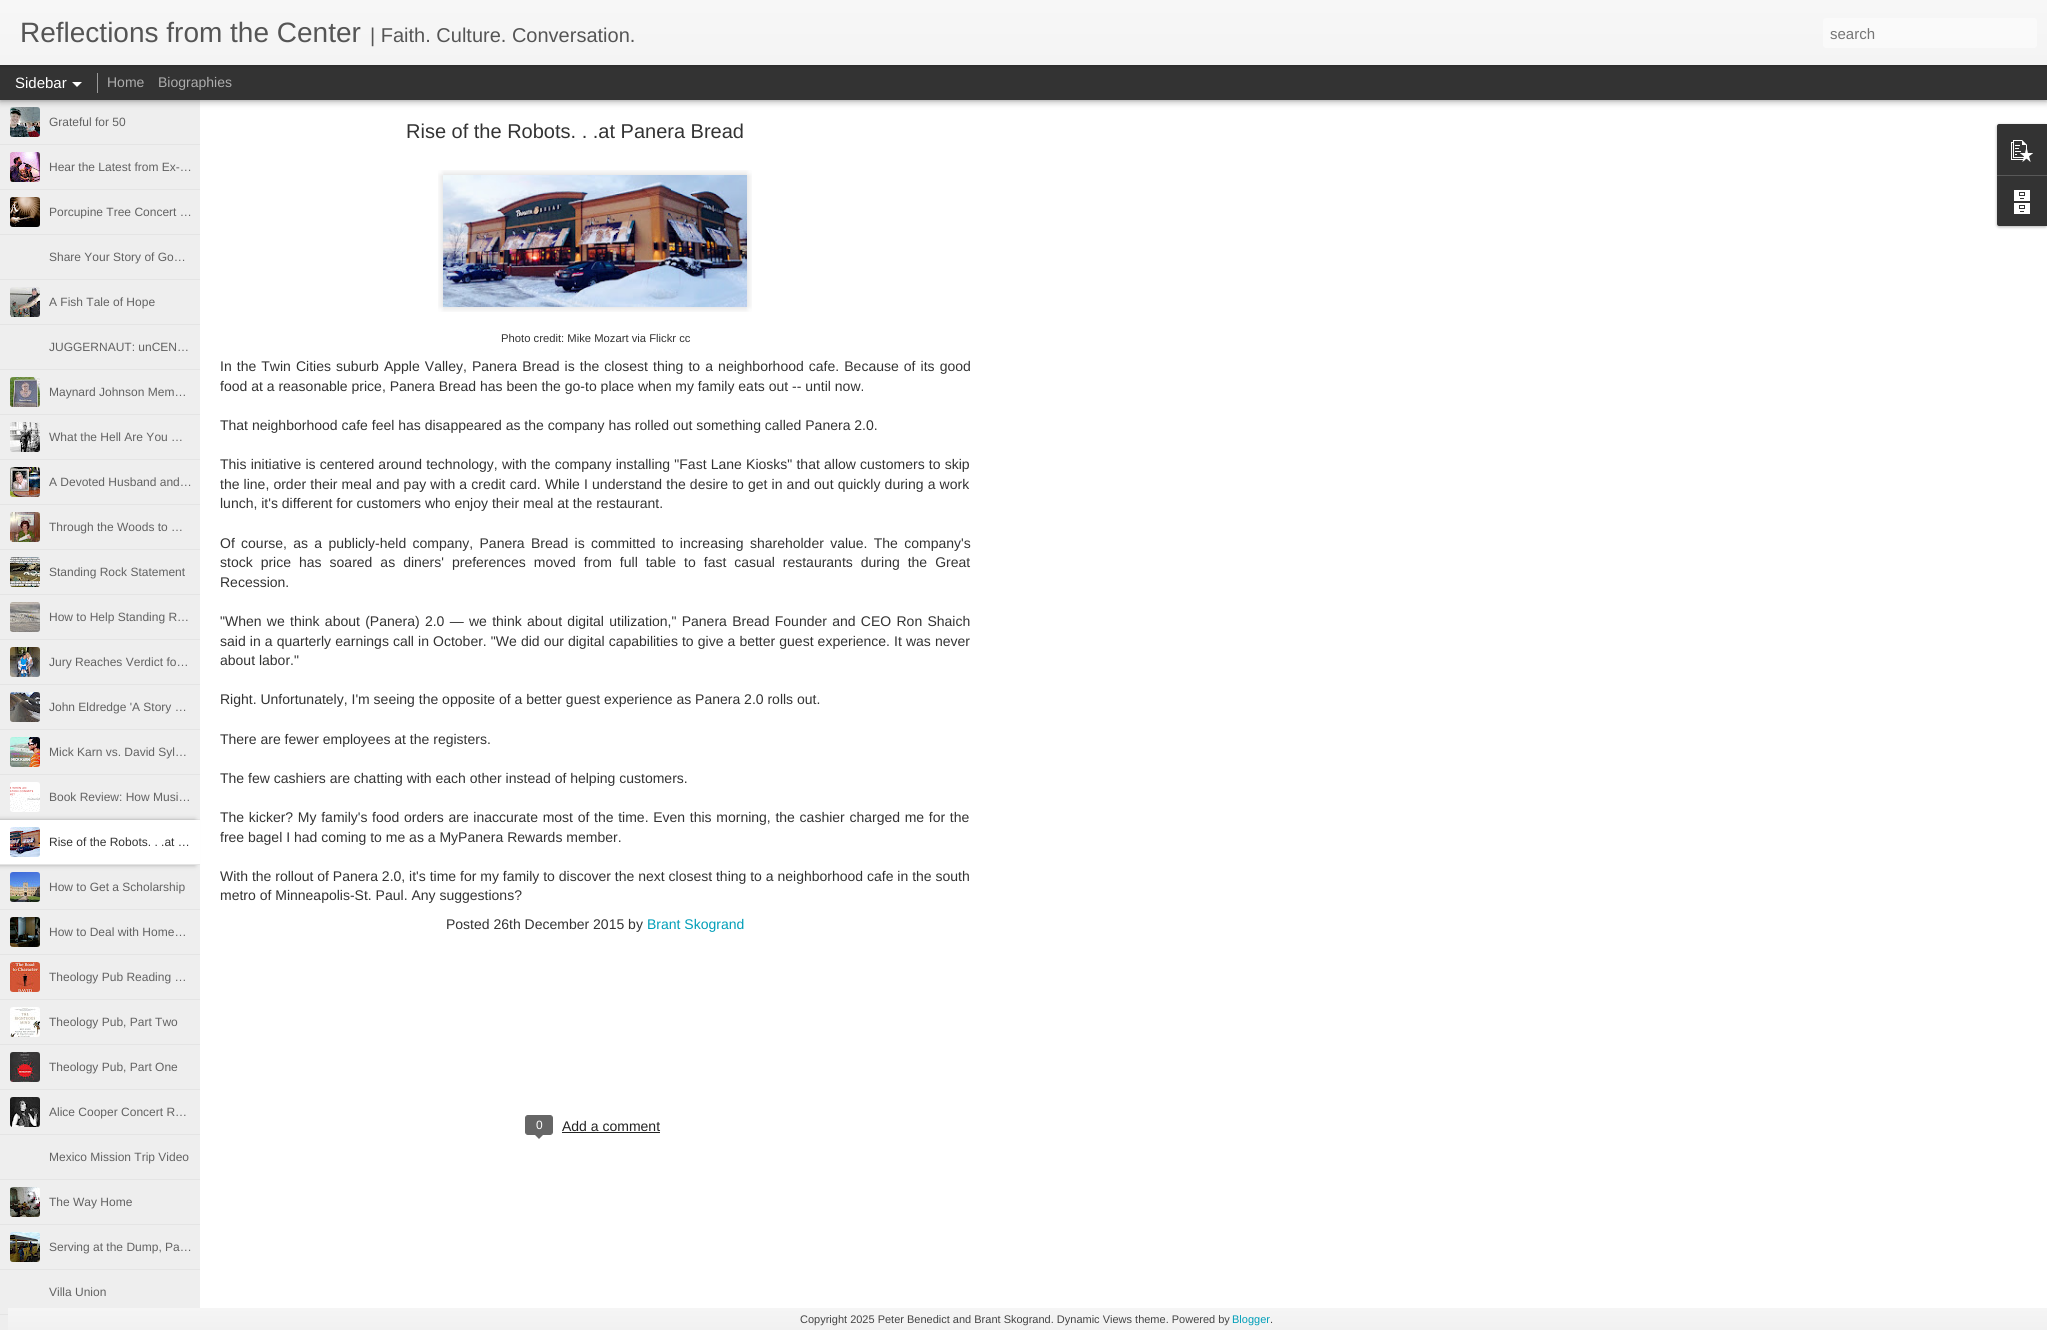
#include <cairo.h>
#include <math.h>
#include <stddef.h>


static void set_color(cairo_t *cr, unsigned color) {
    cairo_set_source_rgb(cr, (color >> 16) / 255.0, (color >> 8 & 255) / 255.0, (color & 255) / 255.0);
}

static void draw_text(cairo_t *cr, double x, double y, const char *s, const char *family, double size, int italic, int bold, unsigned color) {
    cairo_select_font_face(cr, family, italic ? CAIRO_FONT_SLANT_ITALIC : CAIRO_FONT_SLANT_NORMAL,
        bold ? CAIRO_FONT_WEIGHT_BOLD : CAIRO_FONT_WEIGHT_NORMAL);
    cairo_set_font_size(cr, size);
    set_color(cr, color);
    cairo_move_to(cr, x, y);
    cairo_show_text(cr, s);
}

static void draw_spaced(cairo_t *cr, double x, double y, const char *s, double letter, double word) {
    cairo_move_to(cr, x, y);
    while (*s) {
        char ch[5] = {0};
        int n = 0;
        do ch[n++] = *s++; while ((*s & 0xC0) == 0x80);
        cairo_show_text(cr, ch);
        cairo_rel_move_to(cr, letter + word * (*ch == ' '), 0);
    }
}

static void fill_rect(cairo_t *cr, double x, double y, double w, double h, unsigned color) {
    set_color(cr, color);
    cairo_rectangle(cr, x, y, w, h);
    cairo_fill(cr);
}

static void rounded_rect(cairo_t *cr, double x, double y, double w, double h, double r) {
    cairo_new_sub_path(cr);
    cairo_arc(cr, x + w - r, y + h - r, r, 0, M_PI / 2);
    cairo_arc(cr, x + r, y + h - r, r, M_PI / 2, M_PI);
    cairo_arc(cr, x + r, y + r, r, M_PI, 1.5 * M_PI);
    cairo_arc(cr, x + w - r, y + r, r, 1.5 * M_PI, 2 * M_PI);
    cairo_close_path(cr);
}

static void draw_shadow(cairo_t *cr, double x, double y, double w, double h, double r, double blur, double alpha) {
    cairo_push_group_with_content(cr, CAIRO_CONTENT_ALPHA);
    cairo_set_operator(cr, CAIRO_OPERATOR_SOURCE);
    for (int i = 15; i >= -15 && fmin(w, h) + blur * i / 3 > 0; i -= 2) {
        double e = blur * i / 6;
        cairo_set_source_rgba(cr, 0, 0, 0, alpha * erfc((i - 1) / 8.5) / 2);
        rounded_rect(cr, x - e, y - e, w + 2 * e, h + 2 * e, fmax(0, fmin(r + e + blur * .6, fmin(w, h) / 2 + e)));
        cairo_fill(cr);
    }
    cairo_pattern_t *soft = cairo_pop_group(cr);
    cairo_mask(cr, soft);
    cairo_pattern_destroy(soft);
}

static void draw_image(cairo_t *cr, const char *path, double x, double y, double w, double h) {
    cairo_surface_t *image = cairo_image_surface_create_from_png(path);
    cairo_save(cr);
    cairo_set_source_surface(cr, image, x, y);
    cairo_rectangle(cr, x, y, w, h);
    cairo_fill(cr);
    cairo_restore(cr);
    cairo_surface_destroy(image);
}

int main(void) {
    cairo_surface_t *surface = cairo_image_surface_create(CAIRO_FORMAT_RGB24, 2047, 1330);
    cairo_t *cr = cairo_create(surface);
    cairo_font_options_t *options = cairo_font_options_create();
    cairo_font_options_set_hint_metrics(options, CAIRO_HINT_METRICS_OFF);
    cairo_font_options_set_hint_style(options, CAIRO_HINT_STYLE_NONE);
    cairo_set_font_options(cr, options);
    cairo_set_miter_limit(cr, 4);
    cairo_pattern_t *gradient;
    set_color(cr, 0xFFFFFF);
    cairo_paint(cr);
    fill_rect(cr, 0, 100, 200, 1230, 0xEEEEEE);
    draw_image(cr, "assets/img1.png", 10, 107, 30, 30);
    set_color(cr, 0x000000);
    draw_shadow(cr, 0, 65, 2047, 35, 0, 4, 0.5);
    fill_rect(cr, 0, 65, 2047, 35, 0x333333);
    fill_rect(cr, 97, 73, 1, 20, 0x999999);
    set_color(cr, 0x000000);
    draw_shadow(cr, 0, 0, 2047, 65, 0, 2.5, 0.3);
    gradient = cairo_pattern_create_linear(0, 0, 0, 65);
    cairo_pattern_add_color_stop_rgba(gradient, 0, 0.969, 0.969, 0.969, 1);
    cairo_pattern_add_color_stop_rgba(gradient, 1, 0.957, 0.957, 0.957, 1);
    cairo_set_source(cr, gradient);
    cairo_pattern_destroy(gradient);
    cairo_rectangle(cr, 0, 0, 2047, 65);
    cairo_fill(cr);
    draw_text(cr, 20, 42, "Reflections from the Center", "Liberation Sans", 28, 0, 0, 0x555555);
    draw_text(cr, 370, 42, "| Faith. Culture. Conversation.", "Liberation Sans", 20, 0, 0, 0x555555);
    set_color(cr, 0xFAFAFA);
    rounded_rect(cr, 1823, 18, 214, 30, 3);
    cairo_fill(cr);
    draw_text(cr, 1830, 39, "search", "Liberation Sans", 15, 0, 0, 0x757575);
    draw_text(cr, 15, 88, "Sidebar", "Liberation Sans", 15, 0, 0, 0xFFFFFF);
    cairo_new_path(cr);
    cairo_move_to(cr, 72, 82);
    cairo_line_to(cr, 82, 82);
    cairo_line_to(cr, 77, 87);
    cairo_close_path(cr);
    cairo_fill(cr);
    draw_text(cr, 107, 87, "Home", "Liberation Sans", 14, 0, 0, 0xADADAD);
    draw_text(cr, 158, 87, "Biographies", "Liberation Sans", 14, 0, 0, 0xADADAD);
    fill_rect(cr, 0, 144, 200, 1, 0xE4E4E4);
    draw_text(cr, 49, 126, "Grateful for 50", "Liberation Sans", 12, 0, 0, 0x626262);
    fill_rect(cr, 0, 189, 200, 1, 0xE4E4E4);
    draw_image(cr, "assets/img2.png", 10, 152, 30, 30);
    draw_text(cr, 49, 171, "Hear the Latest from Ex-…", "Liberation Sans", 12, 0, 0, 0x626262);
    fill_rect(cr, 0, 234, 200, 1, 0xE4E4E4);
    draw_image(cr, "assets/img3.png", 10, 197, 30, 30);
    draw_text(cr, 49, 216, "Porcupine Tree Concert …", "Liberation Sans", 12, 0, 0, 0x626262);
    fill_rect(cr, 0, 279, 200, 1, 0xE4E4E4);
    draw_text(cr, 49, 261, "Share Your Story of Go…", "Liberation Sans", 12, 0, 0, 0x626262);
    fill_rect(cr, 0, 324, 200, 1, 0xE4E4E4);
    draw_image(cr, "assets/img4.png", 10, 287, 30, 30);
    draw_text(cr, 49, 306, "A Fish Tale of Hope", "Liberation Sans", 12, 0, 0, 0x626262);
    fill_rect(cr, 0, 369, 200, 1, 0xE4E4E4);
    draw_text(cr, 49, 351, "JUGGERNAUT: unCEN…", "Liberation Sans", 12, 0, 0, 0x626262);
    fill_rect(cr, 0, 414, 200, 1, 0xE4E4E4);
    draw_image(cr, "assets/img5.png", 10, 377, 30, 30);
    draw_text(cr, 49, 396, "Maynard Johnson Mem…", "Liberation Sans", 12, 0, 0, 0x626262);
    fill_rect(cr, 0, 459, 200, 1, 0xE4E4E4);
    draw_image(cr, "assets/img6.png", 10, 422, 30, 30);
    draw_text(cr, 49, 441, "What the Hell Are You …", "Liberation Sans", 12, 0, 0, 0x626262);
    fill_rect(cr, 0, 504, 200, 1, 0xE4E4E4);
    draw_image(cr, "assets/img7.png", 10, 467, 30, 30);
    draw_text(cr, 49, 486, "A Devoted Husband and…", "Liberation Sans", 12, 0, 0, 0x626262);
    fill_rect(cr, 0, 549, 200, 1, 0xE4E4E4);
    draw_image(cr, "assets/img8.png", 10, 512, 30, 30);
    draw_text(cr, 49, 531, "Through the Woods to …", "Liberation Sans", 12, 0, 0, 0x626262);
    fill_rect(cr, 0, 594, 200, 1, 0xE4E4E4);
    draw_image(cr, "assets/img9.png", 10, 557, 30, 30);
    draw_text(cr, 49, 576, "Standing Rock Statement", "Liberation Sans", 12, 0, 0, 0x626262);
    fill_rect(cr, 0, 639, 200, 1, 0xE4E4E4);
    draw_image(cr, "assets/img10.png", 10, 602, 30, 30);
    draw_text(cr, 49, 621, "How to Help Standing R…", "Liberation Sans", 12, 0, 0, 0x626262);
    fill_rect(cr, 0, 684, 200, 1, 0xE4E4E4);
    draw_image(cr, "assets/img11.png", 10, 647, 30, 30);
    draw_text(cr, 49, 666, "Jury Reaches Verdict fo…", "Liberation Sans", 12, 0, 0, 0x626262);
    fill_rect(cr, 0, 729, 200, 1, 0xE4E4E4);
    draw_image(cr, "assets/img12.png", 10, 692, 30, 30);
    draw_text(cr, 49, 711, "John Eldredge 'A Story …", "Liberation Sans", 12, 0, 0, 0x626262);
    fill_rect(cr, 0, 774, 200, 1, 0xE4E4E4);
    draw_image(cr, "assets/img13.png", 10, 737, 30, 30);
    draw_text(cr, 49, 756, "Mick Karn vs. David Syl…", "Liberation Sans", 12, 0, 0, 0x626262);
    fill_rect(cr, 0, 819, 200, 1, 0xE4E4E4);
    draw_image(cr, "assets/img14.png", 10, 782, 30, 30);
    draw_text(cr, 49, 801, "Book Review: How Musi…", "Liberation Sans", 12, 0, 0, 0x626262);
    draw_image(cr, "assets/img16.png", 10, 872, 30, 30);
    set_color(cr, 0xAAAAAA);
    draw_shadow(cr, -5, 820, 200, 45, 0, 2.5, 1);
    fill_rect(cr, 0, 820, 200, 44, 0xFFFFFF);
    fill_rect(cr, 0, 864, 200, 1, 0xE4E4E4);
    draw_image(cr, "assets/img15.png", 10, 827, 30, 30);
    draw_text(cr, 49, 846, "Rise of the Robots. . .at …", "Liberation Sans", 12, 0, 0, 0x333333);
    fill_rect(cr, 0, 909, 200, 1, 0xE4E4E4);
    draw_text(cr, 49, 891, "How to Get a Scholarship", "Liberation Sans", 12, 0, 0, 0x626262);
    fill_rect(cr, 0, 954, 200, 1, 0xE4E4E4);
    draw_image(cr, "assets/img17.png", 10, 917, 30, 30);
    draw_text(cr, 49, 936, "How to Deal with Home…", "Liberation Sans", 12, 0, 0, 0x626262);
    fill_rect(cr, 0, 999, 200, 1, 0xE4E4E4);
    draw_image(cr, "assets/img18.png", 10, 962, 30, 30);
    draw_text(cr, 49, 981, "Theology Pub Reading …", "Liberation Sans", 12, 0, 0, 0x626262);
    fill_rect(cr, 0, 1044, 200, 1, 0xE4E4E4);
    draw_image(cr, "assets/img19.png", 10, 1007, 30, 30);
    draw_text(cr, 49, 1026, "Theology Pub, Part Two", "Liberation Sans", 12, 0, 0, 0x626262);
    fill_rect(cr, 0, 1089, 200, 1, 0xE4E4E4);
    draw_image(cr, "assets/img20.png", 10, 1052, 30, 30);
    draw_text(cr, 49, 1071, "Theology Pub, Part One", "Liberation Sans", 12, 0, 0, 0x626262);
    fill_rect(cr, 0, 1134, 200, 1, 0xE4E4E4);
    draw_image(cr, "assets/img21.png", 10, 1097, 30, 30);
    draw_text(cr, 49, 1116, "Alice Cooper Concert R…", "Liberation Sans", 12, 0, 0, 0x626262);
    fill_rect(cr, 0, 1179, 200, 1, 0xE4E4E4);
    draw_text(cr, 49, 1161, "Mexico Mission Trip Video", "Liberation Sans", 12, 0, 0, 0x626262);
    fill_rect(cr, 0, 1224, 200, 1, 0xE4E4E4);
    draw_image(cr, "assets/img22.png", 10, 1187, 30, 30);
    draw_text(cr, 49, 1206, "The Way Home", "Liberation Sans", 12, 0, 0, 0x626262);
    fill_rect(cr, 0, 1269, 200, 1, 0xE4E4E4);
    draw_image(cr, "assets/img23.png", 10, 1232, 30, 30);
    draw_text(cr, 49, 1251, "Serving at the Dump, Pa…", "Liberation Sans", 12, 0, 0, 0x626262);
    fill_rect(cr, 0, 1314, 8, 1, 0xE4E4E4);
    draw_text(cr, 49, 1296, "Villa Union", "Liberation Sans", 12, 0, 0, 0x626262);
    draw_text(cr, 406, 138, "Rise of the Robots. . .at Panera Bread", "Liberation Sans", 20, 0, 0, 0x333333);
    draw_image(cr, "assets/img24.png", 438, 170, 314, 142);
    draw_text(cr, 501, 342, "Photo credit: Mike Mozart via Flickr cc", "Liberation Sans", 11.25, 0, 0, 0x333333);
    cairo_set_font_size(cr, 14);
    draw_spaced(cr, 220, 371, "In the Twin Cities suburb Apple Valley, Panera Bread is the closest thing to a neighborhood cafe. Because of its good", 0, 1.2);
    draw_text(cr, 220, 391, "food at a reasonable price, Panera Bread has been the go-to place when my family eats out -- until now.", "Liberation Sans", 14, 0, 0, 0x333333);
    draw_text(cr, 220, 430, "That neighborhood cafe feel has disappeared as the company has rolled out something called Panera 2.0.", "Liberation Sans", 14, 0, 0, 0x333333);
    draw_spaced(cr, 220, 469, "This initiative is centered around technology, with the company installing \"Fast Lane Kiosks\" that allow customers to skip", 0, 0.3);
    draw_spaced(cr, 220, 489, "the line, order their meal and pay with a credit card. While I understand the desire to get in and out quickly during a work", 0, 0.25);
    draw_text(cr, 220, 508, "lunch, it's different for customers who enjoy their meal at the restaurant.", "Liberation Sans", 14, 0, 0, 0x333333);
    draw_spaced(cr, 220, 548, "Of course, as a publicly-held company, Panera Bread is committed to increasing shareholder value. The company's", 0, 2.4);
    draw_spaced(cr, 220, 567, "stock price has soared as diners' preferences moved from full table to fast casual restaurants during the Great", 0, 4.1);
    draw_text(cr, 220, 587, "Recession.", "Liberation Sans", 14, 0, 0, 0x333333);
    draw_spaced(cr, 220, 626, "\"When we think about (Panera) 2.0 — we think about digital utilization,\" Panera Bread Founder and CEO Ron Shaich", 0, 1.4);
    draw_spaced(cr, 220, 646, "said in a quarterly earnings call in October. \"We did our digital capabilities to give a better guest experience. It was never", 0, 0.2);
    draw_text(cr, 220, 665, "about labor.\"", "Liberation Sans", 14, 0, 0, 0x333333);
    draw_text(cr, 220, 704, "Right. Unfortunately, I'm seeing the opposite of a better guest experience as Panera 2.0 rolls out.", "Liberation Sans", 14, 0, 0, 0x333333);
    draw_text(cr, 220, 744, "There are fewer employees at the registers.", "Liberation Sans", 14, 0, 0, 0x333333);
    draw_text(cr, 220, 783, "The few cashiers are chatting with each other instead of helping customers.", "Liberation Sans", 14, 0, 0, 0x333333);
    draw_spaced(cr, 220, 822, "The kicker? My family's food orders are inaccurate most of the time. Even this morning, the cashier charged me for the", 0, 0.8);
    draw_text(cr, 220, 842, "free bagel I had coming to me as a MyPanera Rewards member.", "Liberation Sans", 14, 0, 0, 0x333333);
    draw_text(cr, 220, 881, "With the rollout of Panera 2.0, it's time for my family to discover the next closest thing to a neighborhood cafe in the south", "Liberation Sans", 14, 0, 0, 0x333333);
    draw_text(cr, 220, 900, "metro of Minneapolis-St. Paul. Any suggestions?", "Liberation Sans", 14, 0, 0, 0x333333);
    draw_text(cr, 446, 929, "Posted 26th December 2015 by", "Liberation Sans", 14, 0, 0, 0x333333);
    draw_text(cr, 647, 929, "Brant Skogrand", "Liberation Sans", 14, 0, 0, 0x009EB8);
    set_color(cr, 0x666666);
    rounded_rect(cr, 525.5, 1115.5, 27, 19, 2.5);
    cairo_fill_preserve(cr);
    cairo_set_line_width(cr, 1);
    cairo_stroke(cr);
    draw_text(cr, 536, 1129, "0", "Liberation Sans", 12, 0, 0, 0xFFFFFF);
    set_color(cr, 0x666666);
    cairo_new_path(cr);
    cairo_move_to(cr, 534, 1134);
    cairo_line_to(cr, 544, 1134);
    cairo_line_to(cr, 539, 1139);
    cairo_close_path(cr);
    cairo_fill(cr);
    draw_text(cr, 562, 1131, "Add a comment", "Liberation Sans", 14, 0, 0, 0x222222);
    fill_rect(cr, 562, 1132, 98, 1, 0x222222);
    set_color(cr, 0x000000);
    draw_shadow(cr, 1997, 125, 50, 102, 2, 1.5, 0.3);
    set_color(cr, 0x333333);
    cairo_new_path(cr);
    cairo_move_to(cr, 1999, 124);
    cairo_line_to(cr, 2047, 124);
    cairo_line_to(cr, 2047, 175);
    cairo_line_to(cr, 1997, 175);
    cairo_line_to(cr, 1997, 126);
    cairo_curve_to(cr, 1997, 125, 1998, 124, 1999, 124);
    cairo_close_path(cr);
    cairo_fill(cr);
    draw_image(cr, "assets/img25.png", 2011, 140, 22, 22);
    cairo_new_path(cr);
    cairo_move_to(cr, 1997, 175);
    cairo_line_to(cr, 2047, 175);
    cairo_line_to(cr, 2047, 226);
    cairo_line_to(cr, 1999, 226);
    cairo_curve_to(cr, 1998, 226, 1997, 225, 1997, 224);
    cairo_close_path(cr);
    cairo_fill(cr);
    fill_rect(cr, 1997, 175, 50, 1, 0x585858);
    draw_image(cr, "assets/img26.png", 2014, 190, 16, 24);
    gradient = cairo_pattern_create_linear(1037, 1308, 1037, 1330);
    cairo_pattern_add_color_stop_rgba(gradient, 0, 0.961, 0.961, 0.961, 1);
    cairo_pattern_add_color_stop_rgba(gradient, 1, 0.945, 0.945, 0.945, 1);
    cairo_set_source(cr, gradient);
    cairo_pattern_destroy(gradient);
    cairo_rectangle(cr, 8, 1308, 2039, 22);
    cairo_fill(cr);
    draw_text(cr, 800, 1323, "Copyright 2025 Peter Benedict and Brant Skogrand. Dynamic Views theme. Powered by", "Liberation Sans", 11, 0, 0, 0x444444);
    draw_text(cr, 1232, 1323, "Blogger", "Liberation Sans", 11, 0, 0, 0x009EB8);
    draw_text(cr, 1270, 1323, ".", "Liberation Sans", 11, 0, 0, 0x444444);
    cairo_surface_write_to_png(surface, "output.png");
    cairo_font_options_destroy(options);
    cairo_destroy(cr);
    cairo_surface_destroy(surface);
    return 0;
}
